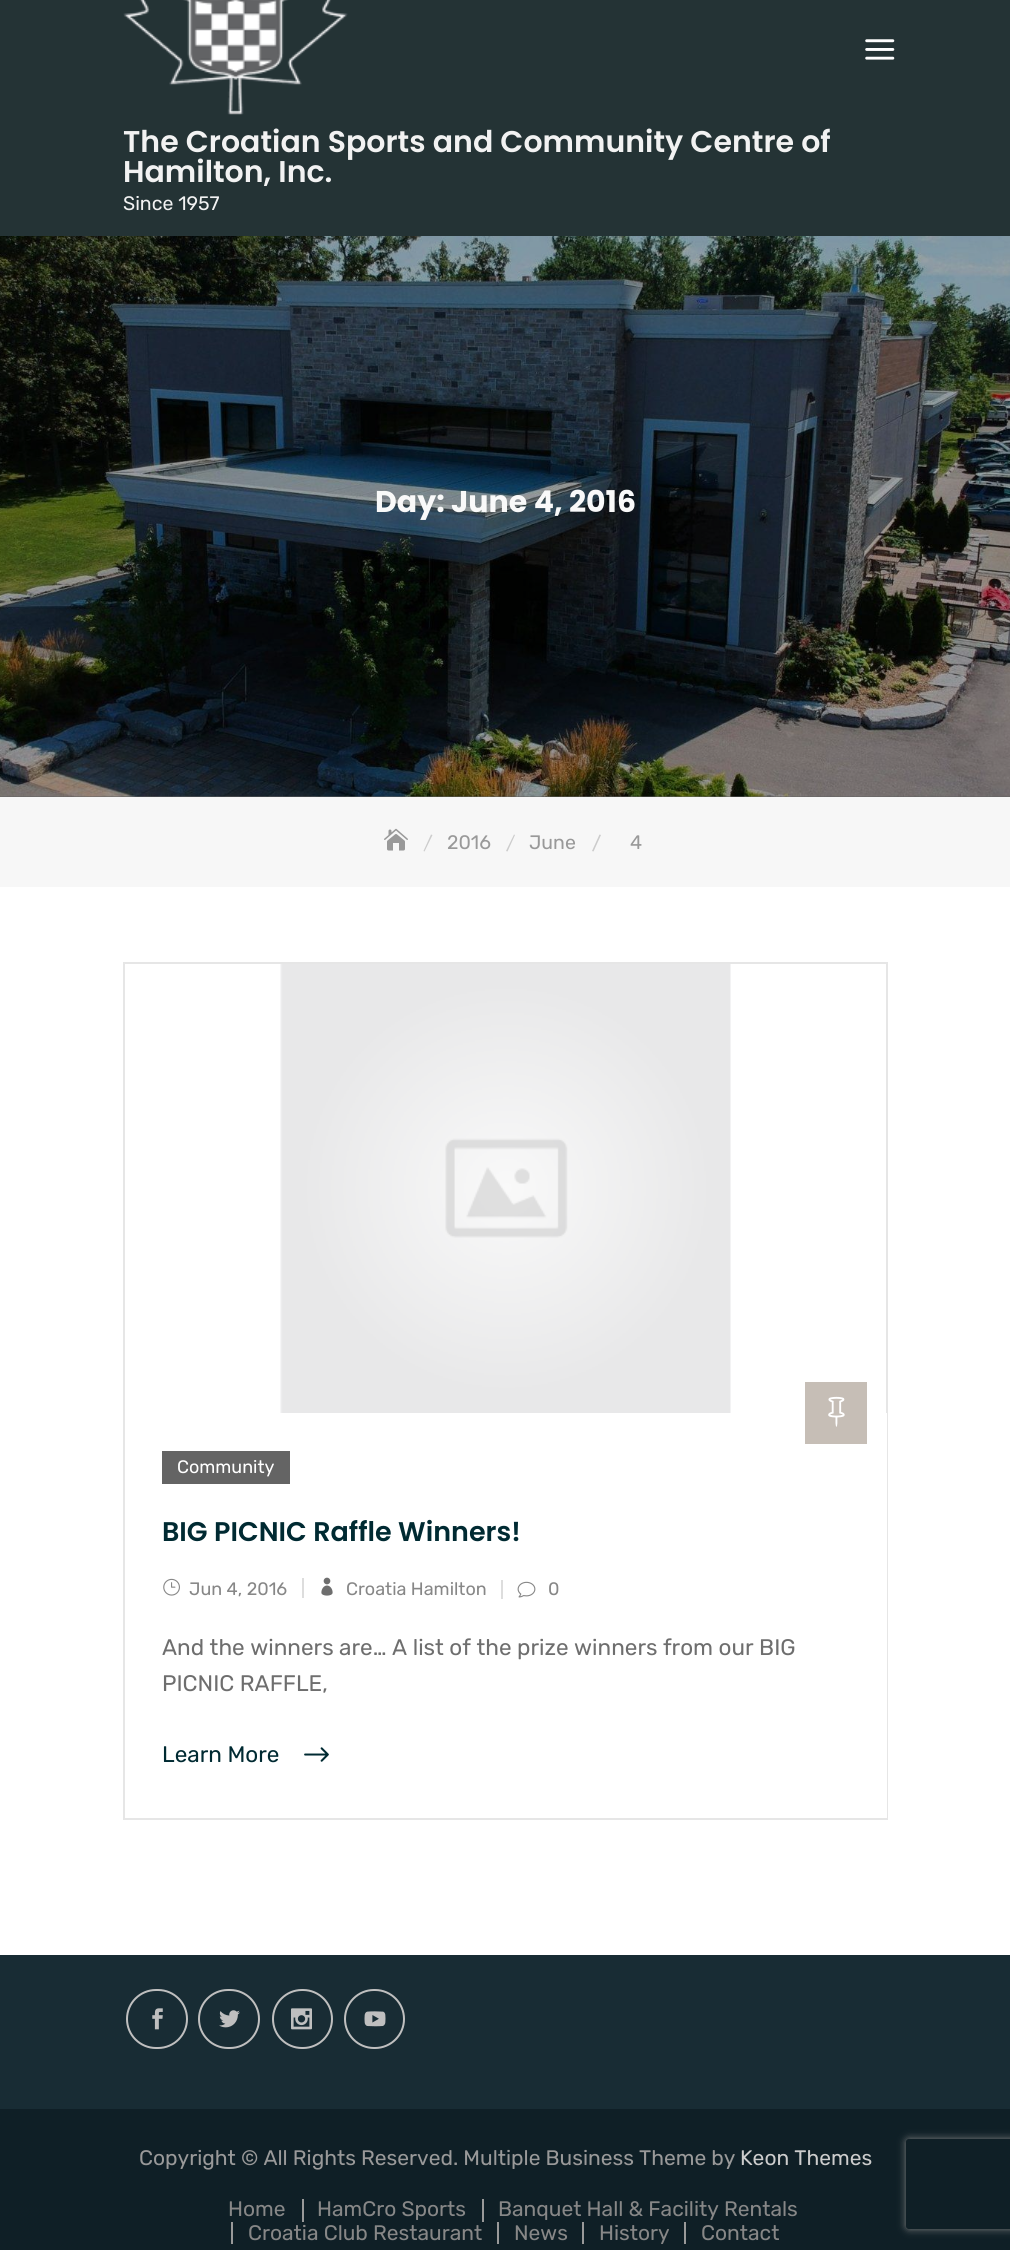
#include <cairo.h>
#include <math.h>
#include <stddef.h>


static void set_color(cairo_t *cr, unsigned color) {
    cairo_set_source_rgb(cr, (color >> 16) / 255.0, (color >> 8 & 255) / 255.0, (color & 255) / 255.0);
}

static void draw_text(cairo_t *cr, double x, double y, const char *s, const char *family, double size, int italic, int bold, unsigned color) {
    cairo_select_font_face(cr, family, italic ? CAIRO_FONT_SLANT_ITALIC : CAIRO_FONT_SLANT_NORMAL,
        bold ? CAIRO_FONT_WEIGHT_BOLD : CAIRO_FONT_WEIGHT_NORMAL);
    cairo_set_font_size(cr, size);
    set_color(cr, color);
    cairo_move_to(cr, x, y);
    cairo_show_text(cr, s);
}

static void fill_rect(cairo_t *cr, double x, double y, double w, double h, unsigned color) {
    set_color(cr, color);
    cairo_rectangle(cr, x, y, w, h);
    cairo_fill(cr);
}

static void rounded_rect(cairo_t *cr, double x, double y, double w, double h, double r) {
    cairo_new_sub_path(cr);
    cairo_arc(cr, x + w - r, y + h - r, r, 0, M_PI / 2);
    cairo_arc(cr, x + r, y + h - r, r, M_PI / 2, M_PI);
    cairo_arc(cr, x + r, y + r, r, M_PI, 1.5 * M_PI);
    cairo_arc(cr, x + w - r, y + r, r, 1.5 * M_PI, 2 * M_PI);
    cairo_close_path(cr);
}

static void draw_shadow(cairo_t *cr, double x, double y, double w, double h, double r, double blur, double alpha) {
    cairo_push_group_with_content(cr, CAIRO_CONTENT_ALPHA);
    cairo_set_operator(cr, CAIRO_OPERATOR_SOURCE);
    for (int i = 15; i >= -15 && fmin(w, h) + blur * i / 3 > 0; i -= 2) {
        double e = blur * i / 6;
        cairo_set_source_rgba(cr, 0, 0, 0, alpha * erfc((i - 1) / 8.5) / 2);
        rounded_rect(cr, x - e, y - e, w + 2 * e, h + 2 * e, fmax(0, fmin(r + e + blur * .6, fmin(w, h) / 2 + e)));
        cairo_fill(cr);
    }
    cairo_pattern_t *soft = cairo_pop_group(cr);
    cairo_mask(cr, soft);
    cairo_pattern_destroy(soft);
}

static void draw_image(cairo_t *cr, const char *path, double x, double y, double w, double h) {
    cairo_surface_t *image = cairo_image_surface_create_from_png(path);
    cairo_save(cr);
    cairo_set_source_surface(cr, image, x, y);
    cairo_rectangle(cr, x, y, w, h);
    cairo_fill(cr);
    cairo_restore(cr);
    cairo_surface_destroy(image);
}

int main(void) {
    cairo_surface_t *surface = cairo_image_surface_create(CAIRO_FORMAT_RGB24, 1010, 2250);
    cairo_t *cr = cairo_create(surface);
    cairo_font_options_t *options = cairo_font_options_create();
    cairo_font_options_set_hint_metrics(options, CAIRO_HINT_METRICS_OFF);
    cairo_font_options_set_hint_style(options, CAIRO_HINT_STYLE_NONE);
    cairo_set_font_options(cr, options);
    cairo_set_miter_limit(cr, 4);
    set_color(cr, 0xFFFFFF);
    cairo_paint(cr);
    fill_rect(cr, 0, 0, 1010, 236, 0x243335);
    draw_image(cr, "assets/img1.png", 865, 39, 30, 21);
    draw_image(cr, "assets/img2.png", 123, 0, 225, 115);
    draw_text(cr, 123, 152, "The Croatian Sports and Community Centre of", "Poppins SemiBold", 30, 0, 0, 0xF2F2F2);
    draw_text(cr, 123, 182, "Hamilton, Inc.", "Poppins SemiBold", 30, 0, 0, 0xF2F2F2);
    draw_text(cr, 123, 210, "Since 1957", "Rubik", 19.5, 0, 0, 0xF2F2F2);
    fill_rect(cr, 0, 796, 1010, 1, 0x636363);
    draw_image(cr, "assets/img3.png", 0, 236, 1010, 561);
    draw_text(cr, 375, 512, "Day: June 4, 2016", "Poppins", 30, 0, 1, 0xF9F9F9);
    fill_rect(cr, 0, 797, 1010, 90, 0xF7F7F7);
    draw_image(cr, "assets/img4.png", 384, 828, 24, 23);
    set_color(cr, 0xCCCCCC);
    cairo_new_path(cr);
    cairo_move_to(cr, 431, 834.5);
    cairo_line_to(cr, 432.5, 835);
    cairo_line_to(cr, 424.5, 851.5);
    cairo_line_to(cr, 423.5, 851);
    cairo_close_path(cr);
    cairo_fill(cr);
    draw_text(cr, 447, 849, "2016", "Rubik", 19.5, 0, 0, 0x999999);
    set_color(cr, 0xCCCCCC);
    cairo_new_path(cr);
    cairo_move_to(cr, 514, 834.5);
    cairo_line_to(cr, 515, 835);
    cairo_line_to(cr, 507.5, 851.5);
    cairo_line_to(cr, 506, 851);
    cairo_close_path(cr);
    cairo_fill(cr);
    draw_text(cr, 529, 849, "June", "Rubik", 19.5, 0, 0, 0x999999);
    set_color(cr, 0xCCCCCC);
    cairo_new_path(cr);
    cairo_move_to(cr, 599.5, 834.5);
    cairo_line_to(cr, 601, 835);
    cairo_line_to(cr, 593.5, 851.5);
    cairo_line_to(cr, 592, 851);
    cairo_close_path(cr);
    cairo_fill(cr);
    draw_text(cr, 630, 849, "4", "Rubik", 19.5, 0, 0, 0x999999);
    cairo_rectangle(cr, 124, 963, 763, 856);
    set_color(cr, 0xE6E6E6);
    cairo_stroke(cr);
    draw_image(cr, "assets/img5.png", 280, 964, 451, 449);
    fill_rect(cr, 886, 1413, 1, 405, 0xFFFFFF);
    fill_rect(cr, 805, 1382, 62, 62, 0xC6BEB6);
    draw_image(cr, "assets/img6.png", 828, 1396, 17, 31);
    fill_rect(cr, 162, 1451, 128, 33, 0x646464);
    draw_text(cr, 177, 1473, "Community", "Rubik", 18, 0, 0, 0xFFFFFF);
    draw_text(cr, 162, 1541, "BIG PICNIC Raffle Winners!", "Poppins SemiBold", 27, 0, 0, 0x002A32);
    draw_image(cr, "assets/img7.png", 163, 1578, 17, 18);
    draw_text(cr, 189, 1595, "Jun 4, 2016", "Rubik", 18, 0, 0, 0x878787);
    fill_rect(cr, 302, 1578, 2, 20, 0xDDDDDD);
    draw_image(cr, "assets/img8.png", 321, 1577, 12, 19);
    draw_text(cr, 346, 1595, "Croatia Hamilton", "Rubik", 18, 0, 0, 0x878787);
    fill_rect(cr, 501, 1580, 2, 19, 0xDDDDDD);
    draw_image(cr, "assets/img9.png", 517, 1581, 19, 17);
    draw_text(cr, 548, 1595, "0", "Rubik", 18, 0, 0, 0x878787);
    draw_text(cr, 162, 1655, "And the winners are… A list of the prize winners from our BIG", "Rubik", 22.5, 0, 0, 0x6E6E6E);
    draw_text(cr, 162, 1691, "PICNIC RAFFLE,", "Rubik", 22.5, 0, 0, 0x6E6E6E);
    draw_text(cr, 162, 1762, "Learn More", "Rubik", 22.5, 0, 0, 0x002A32);
    draw_image(cr, "assets/img10.png", 304, 1747, 25, 15);
    fill_rect(cr, 0, 1955, 1010, 154, 0x182C34);
    rounded_rect(cr, 127, 1990, 60, 58, 29);
    set_color(cr, 0xBFBFBF);
    cairo_stroke(cr);
    draw_image(cr, "assets/img11.png", 152, 2008, 11, 22);
    rounded_rect(cr, 199, 1990, 60, 58, 29);
    cairo_stroke(cr);
    draw_image(cr, "assets/img12.png", 219, 2010, 21, 18);
    rounded_rect(cr, 273, 1990, 59, 58, 29);
    cairo_stroke(cr);
    draw_image(cr, "assets/img13.png", 291, 2008, 21, 22);
    rounded_rect(cr, 345, 1990, 59, 58, 29);
    cairo_stroke(cr);
    draw_image(cr, "assets/img14.png", 364, 2011, 22, 16);
    fill_rect(cr, 0, 2109, 1010, 141, 0x0F1F26);
    draw_text(cr, 139, 2165, "Copyright © All Rights Reserved. Multiple Business Theme by", "Rubik", 21, 0, 0, 0x999999);
    draw_text(cr, 740, 2165, "Keon Themes", "Rubik", 21, 0, 0, 0xCCCCCC);
    draw_text(cr, 228, 2216, "Home", "Rubik", 21, 0, 0, 0x878787);
    fill_rect(cr, 302, 2199, 2, 23, 0x999999);
    draw_text(cr, 317, 2216, "HamCro Sports", "Rubik", 21, 0, 0, 0x878787);
    fill_rect(cr, 482, 2199, 2, 23, 0x999999);
    draw_text(cr, 498, 2216, "Banquet Hall & Facility Rentals", "Rubik", 21, 0, 0, 0x878787);
    fill_rect(cr, 231, 2222, 2, 22, 0x999999);
    draw_text(cr, 248, 2240, "Croatia Club Restaurant", "Rubik", 21, 0, 0, 0x878787);
    fill_rect(cr, 497, 2222, 2, 22, 0x999999);
    draw_text(cr, 514, 2240, "News", "Rubik", 21, 0, 0, 0x878787);
    fill_rect(cr, 582, 2222, 2, 22, 0x999999);
    draw_text(cr, 599, 2240, "History", "Rubik", 21, 0, 0, 0x878787);
    fill_rect(cr, 684, 2222, 2, 22, 0x999999);
    draw_text(cr, 701, 2240, "Contact", "Rubik", 21, 0, 0, 0x878787);
    cairo_save(cr);
    cairo_set_fill_rule(cr, CAIRO_FILL_RULE_EVEN_ODD);
    cairo_new_path(cr);
    cairo_move_to(cr, 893, 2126);
    cairo_line_to(cr, 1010, 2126);
    cairo_line_to(cr, 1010, 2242);
    cairo_line_to(cr, 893, 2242);
    cairo_close_path(cr);
    cairo_move_to(cr, 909, 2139);
    cairo_line_to(cr, 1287, 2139);
    cairo_curve_to(cr, 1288.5, 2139, 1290, 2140.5, 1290, 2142);
    cairo_line_to(cr, 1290, 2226);
    cairo_curve_to(cr, 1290, 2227.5, 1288.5, 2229, 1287, 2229);
    cairo_line_to(cr, 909, 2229);
    cairo_curve_to(cr, 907.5, 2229, 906, 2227.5, 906, 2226);
    cairo_line_to(cr, 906, 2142);
    cairo_curve_to(cr, 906, 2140.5, 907.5, 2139, 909, 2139);
    cairo_close_path(cr);
    cairo_clip(cr);
    set_color(cr, 0x808080);
    draw_shadow(cr, 906, 2139, 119, 90, 3, 4, 1);
    cairo_restore(cr);
    cairo_surface_write_to_png(surface, "output.png");
    cairo_font_options_destroy(options);
    cairo_destroy(cr);
    cairo_surface_destroy(surface);
    return 0;
}
